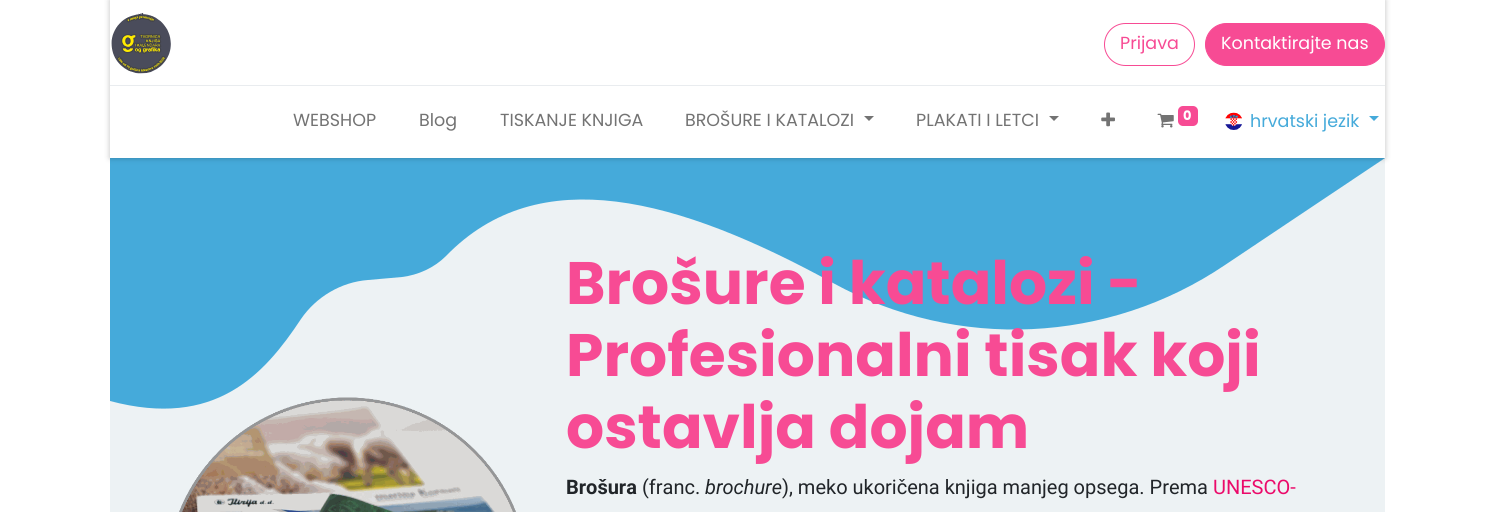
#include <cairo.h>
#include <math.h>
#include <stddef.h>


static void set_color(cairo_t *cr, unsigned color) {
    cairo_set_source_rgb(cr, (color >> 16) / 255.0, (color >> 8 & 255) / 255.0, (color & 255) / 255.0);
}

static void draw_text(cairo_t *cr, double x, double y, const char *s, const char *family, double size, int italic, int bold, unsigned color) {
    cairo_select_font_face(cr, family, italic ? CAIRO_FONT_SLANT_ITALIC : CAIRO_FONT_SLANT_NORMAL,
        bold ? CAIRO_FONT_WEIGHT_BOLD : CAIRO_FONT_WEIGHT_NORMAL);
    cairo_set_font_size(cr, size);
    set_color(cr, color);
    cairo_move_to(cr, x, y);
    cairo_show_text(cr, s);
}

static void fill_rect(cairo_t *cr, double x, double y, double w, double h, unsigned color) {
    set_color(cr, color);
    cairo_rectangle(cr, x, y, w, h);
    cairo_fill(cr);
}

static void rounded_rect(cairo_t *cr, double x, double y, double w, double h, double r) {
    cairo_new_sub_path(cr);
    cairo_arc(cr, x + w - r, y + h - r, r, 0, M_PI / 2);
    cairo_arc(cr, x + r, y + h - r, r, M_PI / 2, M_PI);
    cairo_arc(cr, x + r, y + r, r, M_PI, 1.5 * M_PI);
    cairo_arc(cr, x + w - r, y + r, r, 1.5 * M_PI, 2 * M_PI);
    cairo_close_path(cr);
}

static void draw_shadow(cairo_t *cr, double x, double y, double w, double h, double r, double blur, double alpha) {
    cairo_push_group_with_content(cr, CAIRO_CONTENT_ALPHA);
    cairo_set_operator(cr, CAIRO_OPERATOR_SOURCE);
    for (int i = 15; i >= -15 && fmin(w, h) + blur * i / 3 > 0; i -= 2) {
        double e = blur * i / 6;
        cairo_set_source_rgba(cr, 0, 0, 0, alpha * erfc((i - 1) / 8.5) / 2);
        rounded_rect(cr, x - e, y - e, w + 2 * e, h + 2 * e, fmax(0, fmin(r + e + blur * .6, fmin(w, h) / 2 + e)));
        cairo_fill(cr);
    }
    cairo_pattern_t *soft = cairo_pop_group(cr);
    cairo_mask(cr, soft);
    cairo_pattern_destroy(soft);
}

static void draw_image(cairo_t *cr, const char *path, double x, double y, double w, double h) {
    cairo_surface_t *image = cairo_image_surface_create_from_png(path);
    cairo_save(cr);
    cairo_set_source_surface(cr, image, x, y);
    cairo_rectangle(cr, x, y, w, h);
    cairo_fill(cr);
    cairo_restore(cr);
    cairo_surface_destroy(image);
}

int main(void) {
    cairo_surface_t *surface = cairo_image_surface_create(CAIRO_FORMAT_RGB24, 1494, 512);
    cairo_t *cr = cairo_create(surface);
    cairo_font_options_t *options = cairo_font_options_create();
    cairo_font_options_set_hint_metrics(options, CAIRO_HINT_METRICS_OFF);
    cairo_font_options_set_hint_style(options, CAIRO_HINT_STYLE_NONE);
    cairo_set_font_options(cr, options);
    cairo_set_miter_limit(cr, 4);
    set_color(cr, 0xFFFFFF);
    cairo_paint(cr);
    fill_rect(cr, 110, 158, 1275, 354, 0xEDF2F4);
    set_color(cr, 0x45AADA);
    cairo_new_path(cr);
    cairo_move_to(cr, 1385, 158);
    cairo_line_to(cr, 1225, 265);
    cairo_curve_to(cr, 1108, 344, 957, 351, 833, 283);
    cairo_curve_to(cr, 678, 198, 539, 160, 446, 256);
    cairo_curve_to(cr, 434, 268, 418, 275, 402, 277);
    cairo_line_to(cr, 368, 280);
    cairo_curve_to(cr, 341, 282, 316, 297, 301, 319);
    cairo_curve_to(cr, 264, 375, 215, 429, 110, 401);
    cairo_line_to(cr, 110, 158);
    cairo_close_path(cr);
    cairo_fill(cr);
    set_color(cr, 0x000000);
    draw_shadow(cr, 110, 0, 1275, 158, 0, 3, 0.25);
    fill_rect(cr, 110, 0, 1275, 158, 0xFFFFFF);
    draw_image(cr, "assets/img1.png", 111, 13, 60, 61);
    rounded_rect(cr, 1104.5, 23.5, 90, 42, 21);
    set_color(cr, 0xF74B94);
    cairo_set_line_width(cr, 1);
    cairo_stroke(cr);
    draw_text(cr, 1120, 49, "Prijava", "Poppins", 17.5, 0, 0, 0xF74B94);
    rounded_rect(cr, 1205.5, 23.5, 179, 42, 21);
    cairo_fill_preserve(cr);
    cairo_stroke(cr);
    draw_text(cr, 1221, 49, "Kontaktirajte nas", "Poppins", 17.5, 0, 0, 0xFFFFFF);
    fill_rect(cr, 110, 85, 1275, 1, 0xE9ECEF);
    draw_text(cr, 293, 126, "WEBSHOP", "Poppins", 17.5, 0, 0, 0x737373);
    draw_text(cr, 419, 126, "Blog", "Poppins", 17.5, 0, 0, 0x737373);
    draw_text(cr, 500, 126, "TISKANJE KNJIGA", "Poppins", 17.5, 0, 0, 0x737373);
    draw_text(cr, 685, 126, "BROŠURE I KATALOZI", "Poppins", 17.5, 0, 0, 0x737373);
    cairo_new_path(cr);
    cairo_move_to(cr, 864, 116);
    cairo_line_to(cr, 874, 116);
    cairo_line_to(cr, 869, 121);
    cairo_close_path(cr);
    cairo_fill(cr);
    draw_text(cr, 916, 126, "PLAKATI I LETCI", "Poppins", 17.5, 0, 0, 0x737373);
    cairo_new_path(cr);
    cairo_move_to(cr, 1049, 116);
    cairo_line_to(cr, 1059, 116);
    cairo_line_to(cr, 1054, 121);
    cairo_close_path(cr);
    cairo_fill(cr);
    draw_image(cr, "assets/img2.png", 1101, 112, 14, 15);
    draw_image(cr, "assets/img3.png", 1157, 113, 17, 15);
    set_color(cr, 0xF74B94);
    rounded_rect(cr, 1178, 106, 20, 20, 5);
    cairo_fill(cr);
    draw_text(cr, 1183, 120, "0", "Poppins", 13, 0, 1, 0xFFFFFF);
    draw_image(cr, "assets/img4.png", 1225, 112, 17, 18);
    draw_text(cr, 1250, 127, "hrvatski jezik", "Poppins", 17.5, 0, 0, 0x45AADA);
    cairo_new_path(cr);
    cairo_move_to(cr, 1369, 116);
    cairo_line_to(cr, 1379, 116);
    cairo_line_to(cr, 1374, 121);
    cairo_close_path(cr);
    cairo_fill(cr);
    draw_image(cr, "assets/img5.png", 179, 397, 337, 115);
    draw_text(cr, 566, 304, "Brošure i katalozi -", "Poppins", 59.9, 0, 1, 0xF74B94);
    draw_text(cr, 566, 376, "Profesionalni tisak koji", "Poppins", 59.9, 0, 1, 0xF74B94);
    draw_text(cr, 566, 448, "ostavlja dojam", "Poppins", 59.9, 0, 1, 0xF74B94);
    draw_text(cr, 566, 494, "Brošura", "Roboto", 20, 0, 1, 0x212529);
    draw_text(cr, 642, 494, "(franc.", "Roboto", 20, 0, 0, 0x212529);
    draw_text(cr, 705, 494, "brochure", "Roboto", 20, 1, 0, 0x212529);
    draw_text(cr, 782, 494, "), meko ukoričena knjiga manjeg opsega. Prema", "Roboto", 20, 0, 0, 0x212529);
    draw_text(cr, 1213, 494, "UNESCO-", "Roboto", 20, 0, 0, 0xEB0A6A);
    cairo_surface_write_to_png(surface, "output.png");
    cairo_font_options_destroy(options);
    cairo_destroy(cr);
    cairo_surface_destroy(surface);
    return 0;
}
